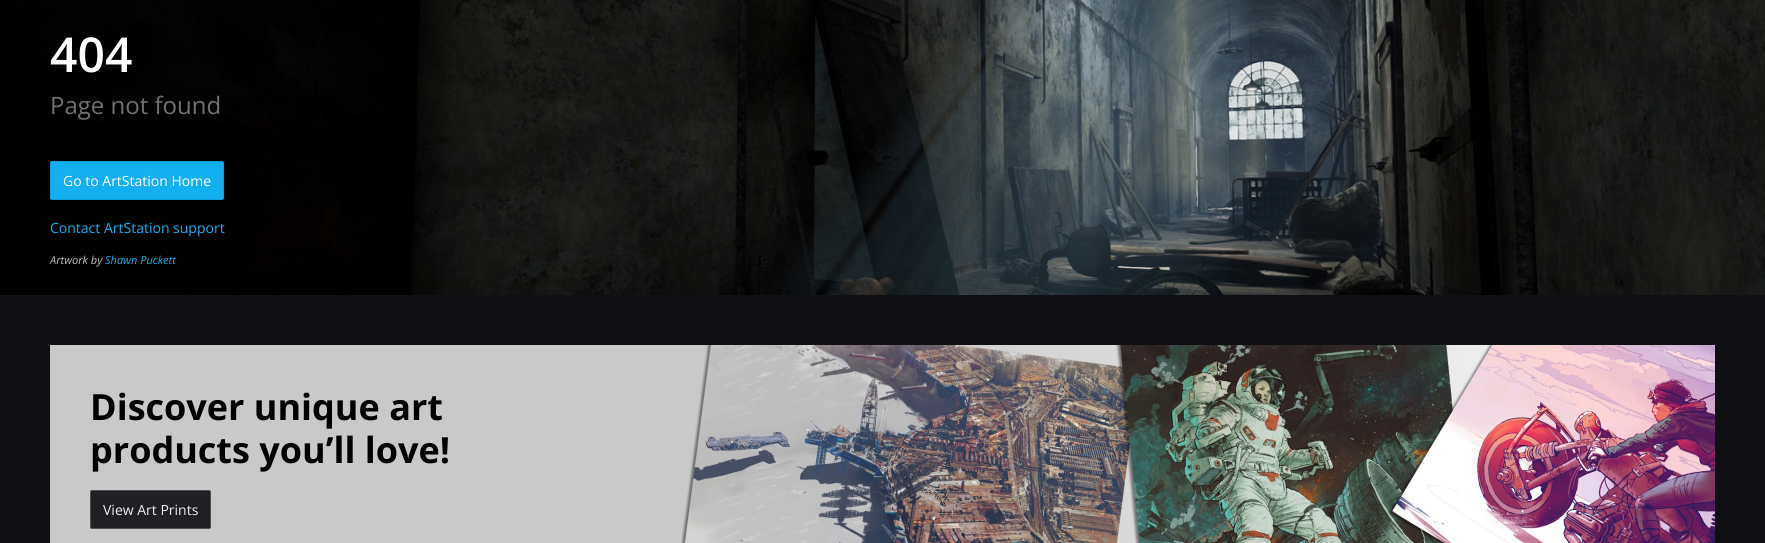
#include <cairo.h>
#include <math.h>
#include <stddef.h>


static void set_color(cairo_t *cr, unsigned color) {
    cairo_set_source_rgb(cr, (color >> 16) / 255.0, (color >> 8 & 255) / 255.0, (color & 255) / 255.0);
}

static void draw_text(cairo_t *cr, double x, double y, const char *s, const char *family, double size, int italic, int bold, unsigned color) {
    cairo_select_font_face(cr, family, italic ? CAIRO_FONT_SLANT_ITALIC : CAIRO_FONT_SLANT_NORMAL,
        bold ? CAIRO_FONT_WEIGHT_BOLD : CAIRO_FONT_WEIGHT_NORMAL);
    cairo_set_font_size(cr, size);
    set_color(cr, color);
    cairo_move_to(cr, x, y);
    cairo_show_text(cr, s);
}

static void fill_rect(cairo_t *cr, double x, double y, double w, double h, unsigned color) {
    set_color(cr, color);
    cairo_rectangle(cr, x, y, w, h);
    cairo_fill(cr);
}

static void rounded_rect(cairo_t *cr, double x, double y, double w, double h, double r) {
    cairo_new_sub_path(cr);
    cairo_arc(cr, x + w - r, y + h - r, r, 0, M_PI / 2);
    cairo_arc(cr, x + r, y + h - r, r, M_PI / 2, M_PI);
    cairo_arc(cr, x + r, y + r, r, M_PI, 1.5 * M_PI);
    cairo_arc(cr, x + w - r, y + r, r, 1.5 * M_PI, 2 * M_PI);
    cairo_close_path(cr);
}

static void draw_image(cairo_t *cr, const char *path, double x, double y, double w, double h) {
    cairo_surface_t *image = cairo_image_surface_create_from_png(path);
    cairo_save(cr);
    cairo_set_source_surface(cr, image, x, y);
    cairo_rectangle(cr, x, y, w, h);
    cairo_fill(cr);
    cairo_restore(cr);
    cairo_surface_destroy(image);
}

int main(void) {
    cairo_surface_t *surface = cairo_image_surface_create(CAIRO_FORMAT_RGB24, 1765, 543);
    cairo_t *cr = cairo_create(surface);
    cairo_font_options_t *options = cairo_font_options_create();
    cairo_font_options_set_hint_metrics(options, CAIRO_HINT_METRICS_OFF);
    cairo_font_options_set_hint_style(options, CAIRO_HINT_STYLE_NONE);
    cairo_set_font_options(cr, options);
    cairo_set_miter_limit(cr, 4);
    set_color(cr, 0x101014);
    cairo_paint(cr);
    draw_image(cr, "assets/img1.png", 0, 0, 1765, 295);
    draw_text(cr, 50, 72, "404", "Open Sans SemiBold", 48, 0, 0, 0xFFFFFF);
    draw_text(cr, 50, 114, "Page not found", "Open Sans", 24, 0, 0, 0x707074);
    set_color(cr, 0x13AFF0);
    rounded_rect(cr, 50.5, 161.5, 173, 38, 1.5);
    cairo_fill_preserve(cr);
    set_color(cr, 0x0E9FDC);
    cairo_set_line_width(cr, 1);
    cairo_stroke(cr);
    draw_text(cr, 63, 186, "Go to ArtStation Home", "Open Sans", 14, 0, 0, 0xFFFFFF);
    draw_text(cr, 50, 233, "Contact ArtStation support", "Open Sans", 14, 0, 0, 0x13AFF0);
    draw_text(cr, 50, 264, "Artwork by", "Open Sans", 11, 1, 0, 0xBEBEC2);
    draw_text(cr, 105, 264, "Shawn Puckett", "Open Sans", 11, 1, 0, 0x13AFF0);
    fill_rect(cr, 50, 345, 631, 198, 0xC9C9C9);
    draw_image(cr, "assets/img2.png", 681, 345, 1034, 198);
    draw_text(cr, 90, 420, "Discover unique art", "Open Sans", 36, 0, 1, 0x000000);
    draw_text(cr, 90, 463, "products you’ll love!", "Open Sans", 36, 0, 1, 0x000000);
    set_color(cr, 0x202024);
    rounded_rect(cr, 90.5, 490.5, 120, 38, 1.5);
    cairo_fill_preserve(cr);
    set_color(cr, 0x505054);
    cairo_stroke(cr);
    draw_text(cr, 103, 515, "View Art Prints", "Open Sans", 14, 0, 0, 0xEEEEF1);
    cairo_surface_write_to_png(surface, "output.png");
    cairo_font_options_destroy(options);
    cairo_destroy(cr);
    cairo_surface_destroy(surface);
    return 0;
}
